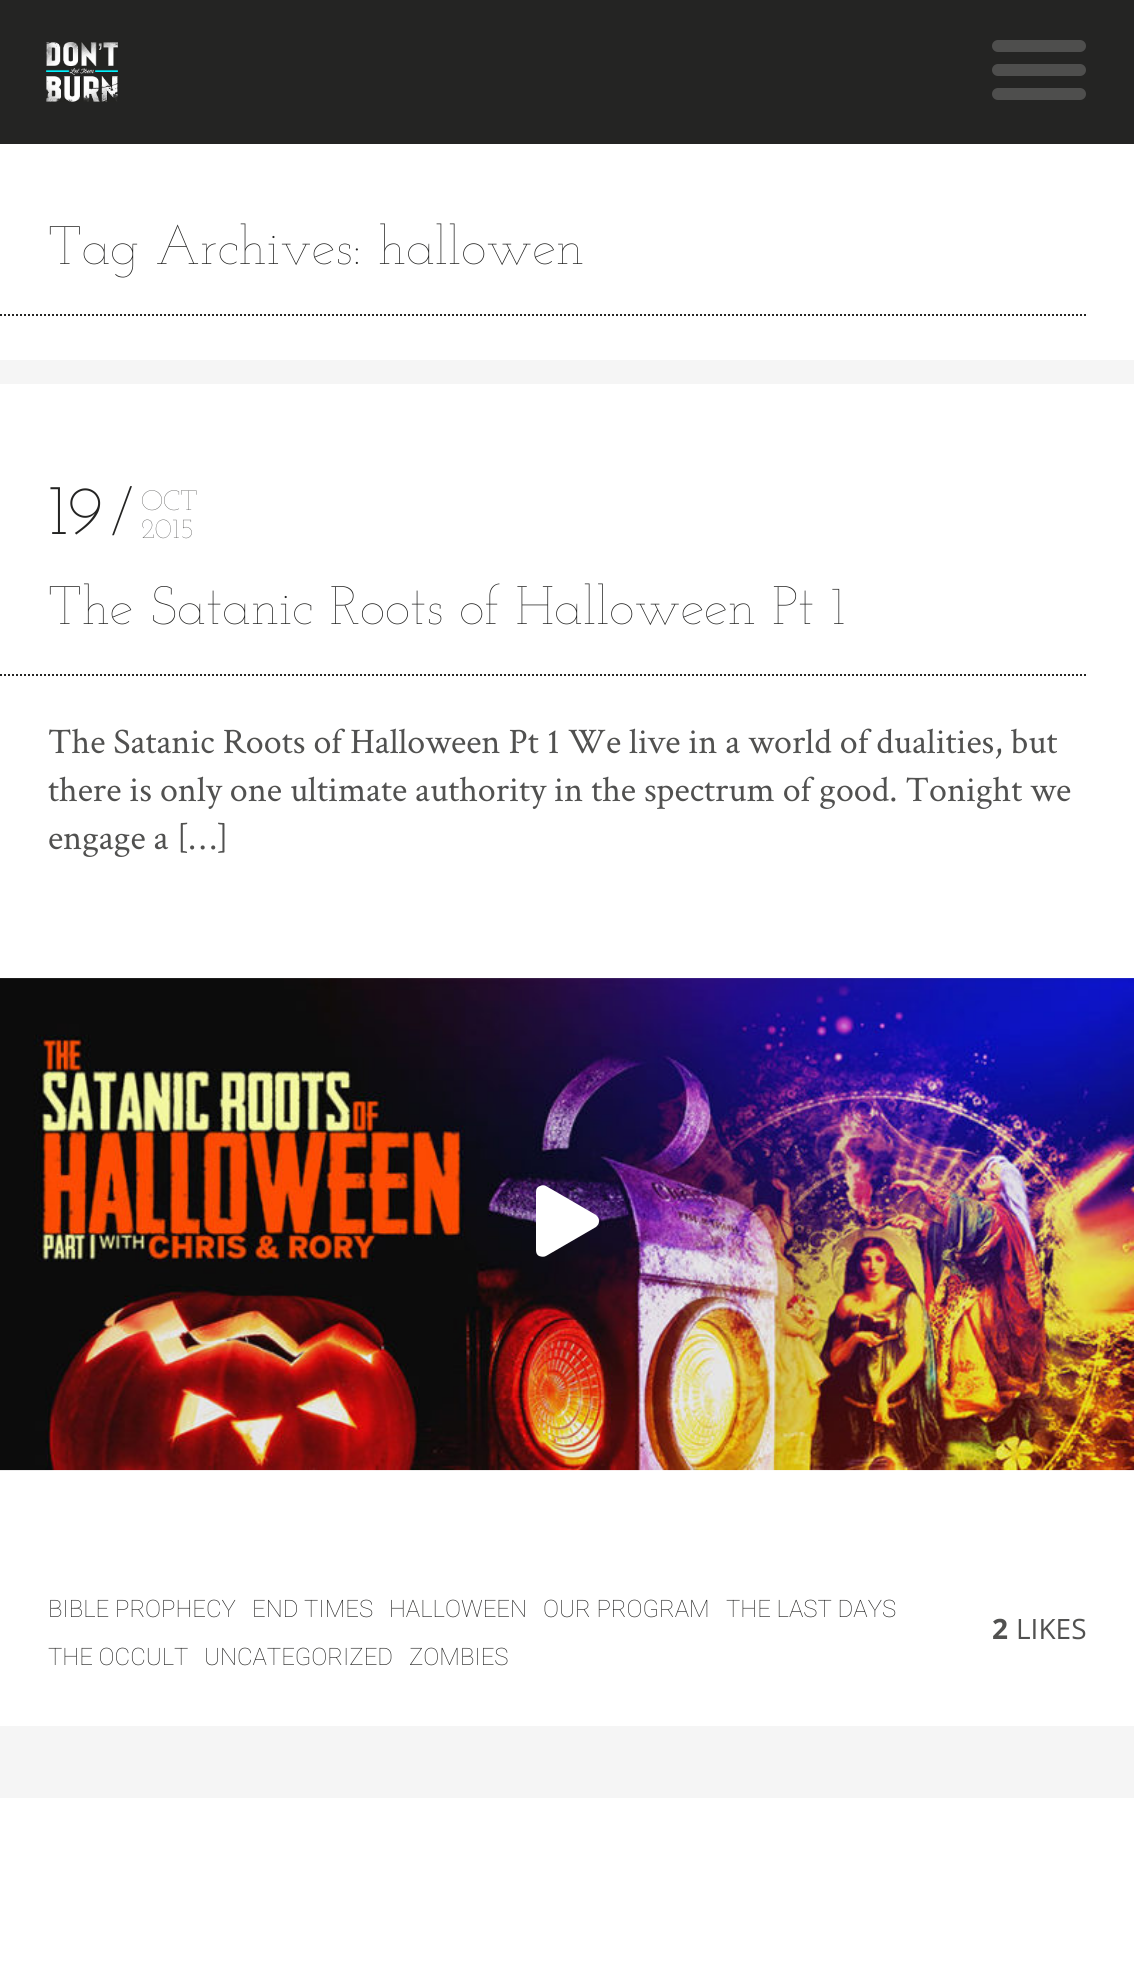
#include <cairo.h>
#include <math.h>
#include <stddef.h>


static void set_color(cairo_t *cr, unsigned color) {
    cairo_set_source_rgb(cr, (color >> 16) / 255.0, (color >> 8 & 255) / 255.0, (color & 255) / 255.0);
}

static void draw_text(cairo_t *cr, double x, double y, const char *s, const char *family, double size, int italic, int bold, unsigned color) {
    cairo_select_font_face(cr, family, italic ? CAIRO_FONT_SLANT_ITALIC : CAIRO_FONT_SLANT_NORMAL,
        bold ? CAIRO_FONT_WEIGHT_BOLD : CAIRO_FONT_WEIGHT_NORMAL);
    cairo_set_font_size(cr, size);
    set_color(cr, color);
    cairo_move_to(cr, x, y);
    cairo_show_text(cr, s);
}

static void fill_rect(cairo_t *cr, double x, double y, double w, double h, unsigned color) {
    set_color(cr, color);
    cairo_rectangle(cr, x, y, w, h);
    cairo_fill(cr);
}

static void rounded_rect(cairo_t *cr, double x, double y, double w, double h, double r) {
    cairo_new_sub_path(cr);
    cairo_arc(cr, x + w - r, y + h - r, r, 0, M_PI / 2);
    cairo_arc(cr, x + r, y + h - r, r, M_PI / 2, M_PI);
    cairo_arc(cr, x + r, y + r, r, M_PI, 1.5 * M_PI);
    cairo_arc(cr, x + w - r, y + r, r, 1.5 * M_PI, 2 * M_PI);
    cairo_close_path(cr);
}

static void draw_image(cairo_t *cr, const char *path, double x, double y, double w, double h) {
    cairo_surface_t *image = cairo_image_surface_create_from_png(path);
    cairo_save(cr);
    cairo_set_source_surface(cr, image, x, y);
    cairo_rectangle(cr, x, y, w, h);
    cairo_fill(cr);
    cairo_restore(cr);
    cairo_surface_destroy(image);
}

int main(void) {
    cairo_surface_t *surface = cairo_image_surface_create(CAIRO_FORMAT_RGB24, 1134, 1963);
    cairo_t *cr = cairo_create(surface);
    cairo_font_options_t *options = cairo_font_options_create();
    cairo_font_options_set_hint_metrics(options, CAIRO_HINT_METRICS_OFF);
    cairo_font_options_set_hint_style(options, CAIRO_HINT_STYLE_NONE);
    cairo_set_font_options(cr, options);
    cairo_set_miter_limit(cr, 4);
    set_color(cr, 0xFFFFFF);
    cairo_paint(cr);
    fill_rect(cr, 0, 0, 1134, 144, 0x242423);
    draw_image(cr, "assets/img1.png", 46, 42, 72, 60);
    set_color(cr, 0x4E4E4D);
    rounded_rect(cr, 992, 64, 94, 12, 6);
    cairo_fill(cr);
    rounded_rect(cr, 992, 40, 94, 12, 6);
    cairo_fill(cr);
    rounded_rect(cr, 992, 88, 94, 12, 6);
    cairo_fill(cr);
    fill_rect(cr, 0, 360, 1134, 1438, 0xF5F5F5);
    draw_text(cr, 48, 264, "Tag Archives: hallowen", "Josefin Slab Thin", 54, 0, 0, 0x242423);
    cairo_new_path(cr);
    cairo_move_to(cr, 0, 315);
    cairo_line_to(cr, 1086, 315);
    cairo_set_dash(cr, (double[]){2, 2}, 2, 0);
    cairo_stroke(cr);
    fill_rect(cr, 0, 384, 1134, 1342, 0xFFFFFF);
    draw_text(cr, 48, 534, "19", "Josefin Slab Light", 72, 0, 0, 0x242423);
    draw_text(cr, 111, 534, "/", "Josefin Slab Light", 65, 0, 0, 0x242423);
    draw_text(cr, 141, 510, "OCT", "Josefin Slab Thin", 28, 0, 0, 0x515150);
    draw_text(cr, 141, 538, "2015", "Josefin Slab Thin", 28, 0, 0, 0x515150);
    draw_text(cr, 48, 624, "The Satanic Roots of Halloween Pt 1", "Josefin Slab Thin", 54, 0, 0, 0x242423);
    cairo_new_path(cr);
    cairo_move_to(cr, 0, 675);
    cairo_line_to(cr, 1086, 675);
    cairo_stroke(cr);
    draw_text(cr, 48, 753, "The Satanic Roots of Halloween Pt 1 We live in a world of dualities, but", "Crimson Text", 36, 0, 0, 0x515150);
    draw_text(cr, 48, 801, "there is only one ultimate authority in the spectrum of good. Tonight we", "Crimson Text", 36, 0, 0, 0x515150);
    draw_text(cr, 48, 849, "engage a […]", "Crimson Text", 36, 0, 0, 0x515150);
    draw_image(cr, "assets/img2.png", 0, 978, 1134, 493);
    set_color(cr, 0xFFFFFF);
    cairo_new_path(cr);
    cairo_move_to(cr, 596, 1215);
    cairo_curve_to(cr, 598, 1217, 599, 1218, 599, 1221);
    cairo_curve_to(cr, 599, 1224, 598, 1225, 596, 1227);
    cairo_line_to(cr, 546, 1256);
    cairo_curve_to(cr, 544, 1257, 542, 1257, 539, 1256);
    cairo_curve_to(cr, 537, 1255, 536, 1253, 536, 1250);
    cairo_line_to(cr, 536, 1192);
    cairo_curve_to(cr, 536, 1189, 537, 1187, 540, 1186);
    cairo_curve_to(cr, 542, 1185, 544, 1185, 546, 1186);
    cairo_close_path(cr);
    cairo_fill(cr);
    draw_text(cr, 48, 1617, "BIBLE PROPHECY", "Roboto Thin", 24, 0, 0, 0x242423);
    draw_text(cr, 252, 1617, "END TIMES", "Roboto Thin", 24, 0, 0, 0x242423);
    draw_text(cr, 389, 1617, "HALLOWEEN", "Roboto Thin", 24, 0, 0, 0x242423);
    draw_text(cr, 543, 1617, "OUR PROGRAM", "Roboto Thin", 24, 0, 0, 0x242423);
    draw_text(cr, 726, 1617, "THE LAST DAYS", "Roboto Thin", 24, 0, 0, 0x242423);
    draw_text(cr, 48, 1665, "THE OCCULT", "Roboto Thin", 24, 0, 0, 0x242423);
    draw_text(cr, 204, 1665, "UNCATEGORIZED", "Roboto Thin", 24, 0, 0, 0x242423);
    draw_text(cr, 409, 1665, "ZOMBIES", "Roboto Thin", 24, 0, 0, 0x242423);
    draw_text(cr, 992, 1639, "2", "Open Sans", 28, 0, 1, 0x515150);
    draw_text(cr, 1016, 1639, "LIKES", "Open Sans", 28, 0, 0, 0x515150);
    cairo_surface_write_to_png(surface, "output.png");
    cairo_font_options_destroy(options);
    cairo_destroy(cr);
    cairo_surface_destroy(surface);
    return 0;
}
